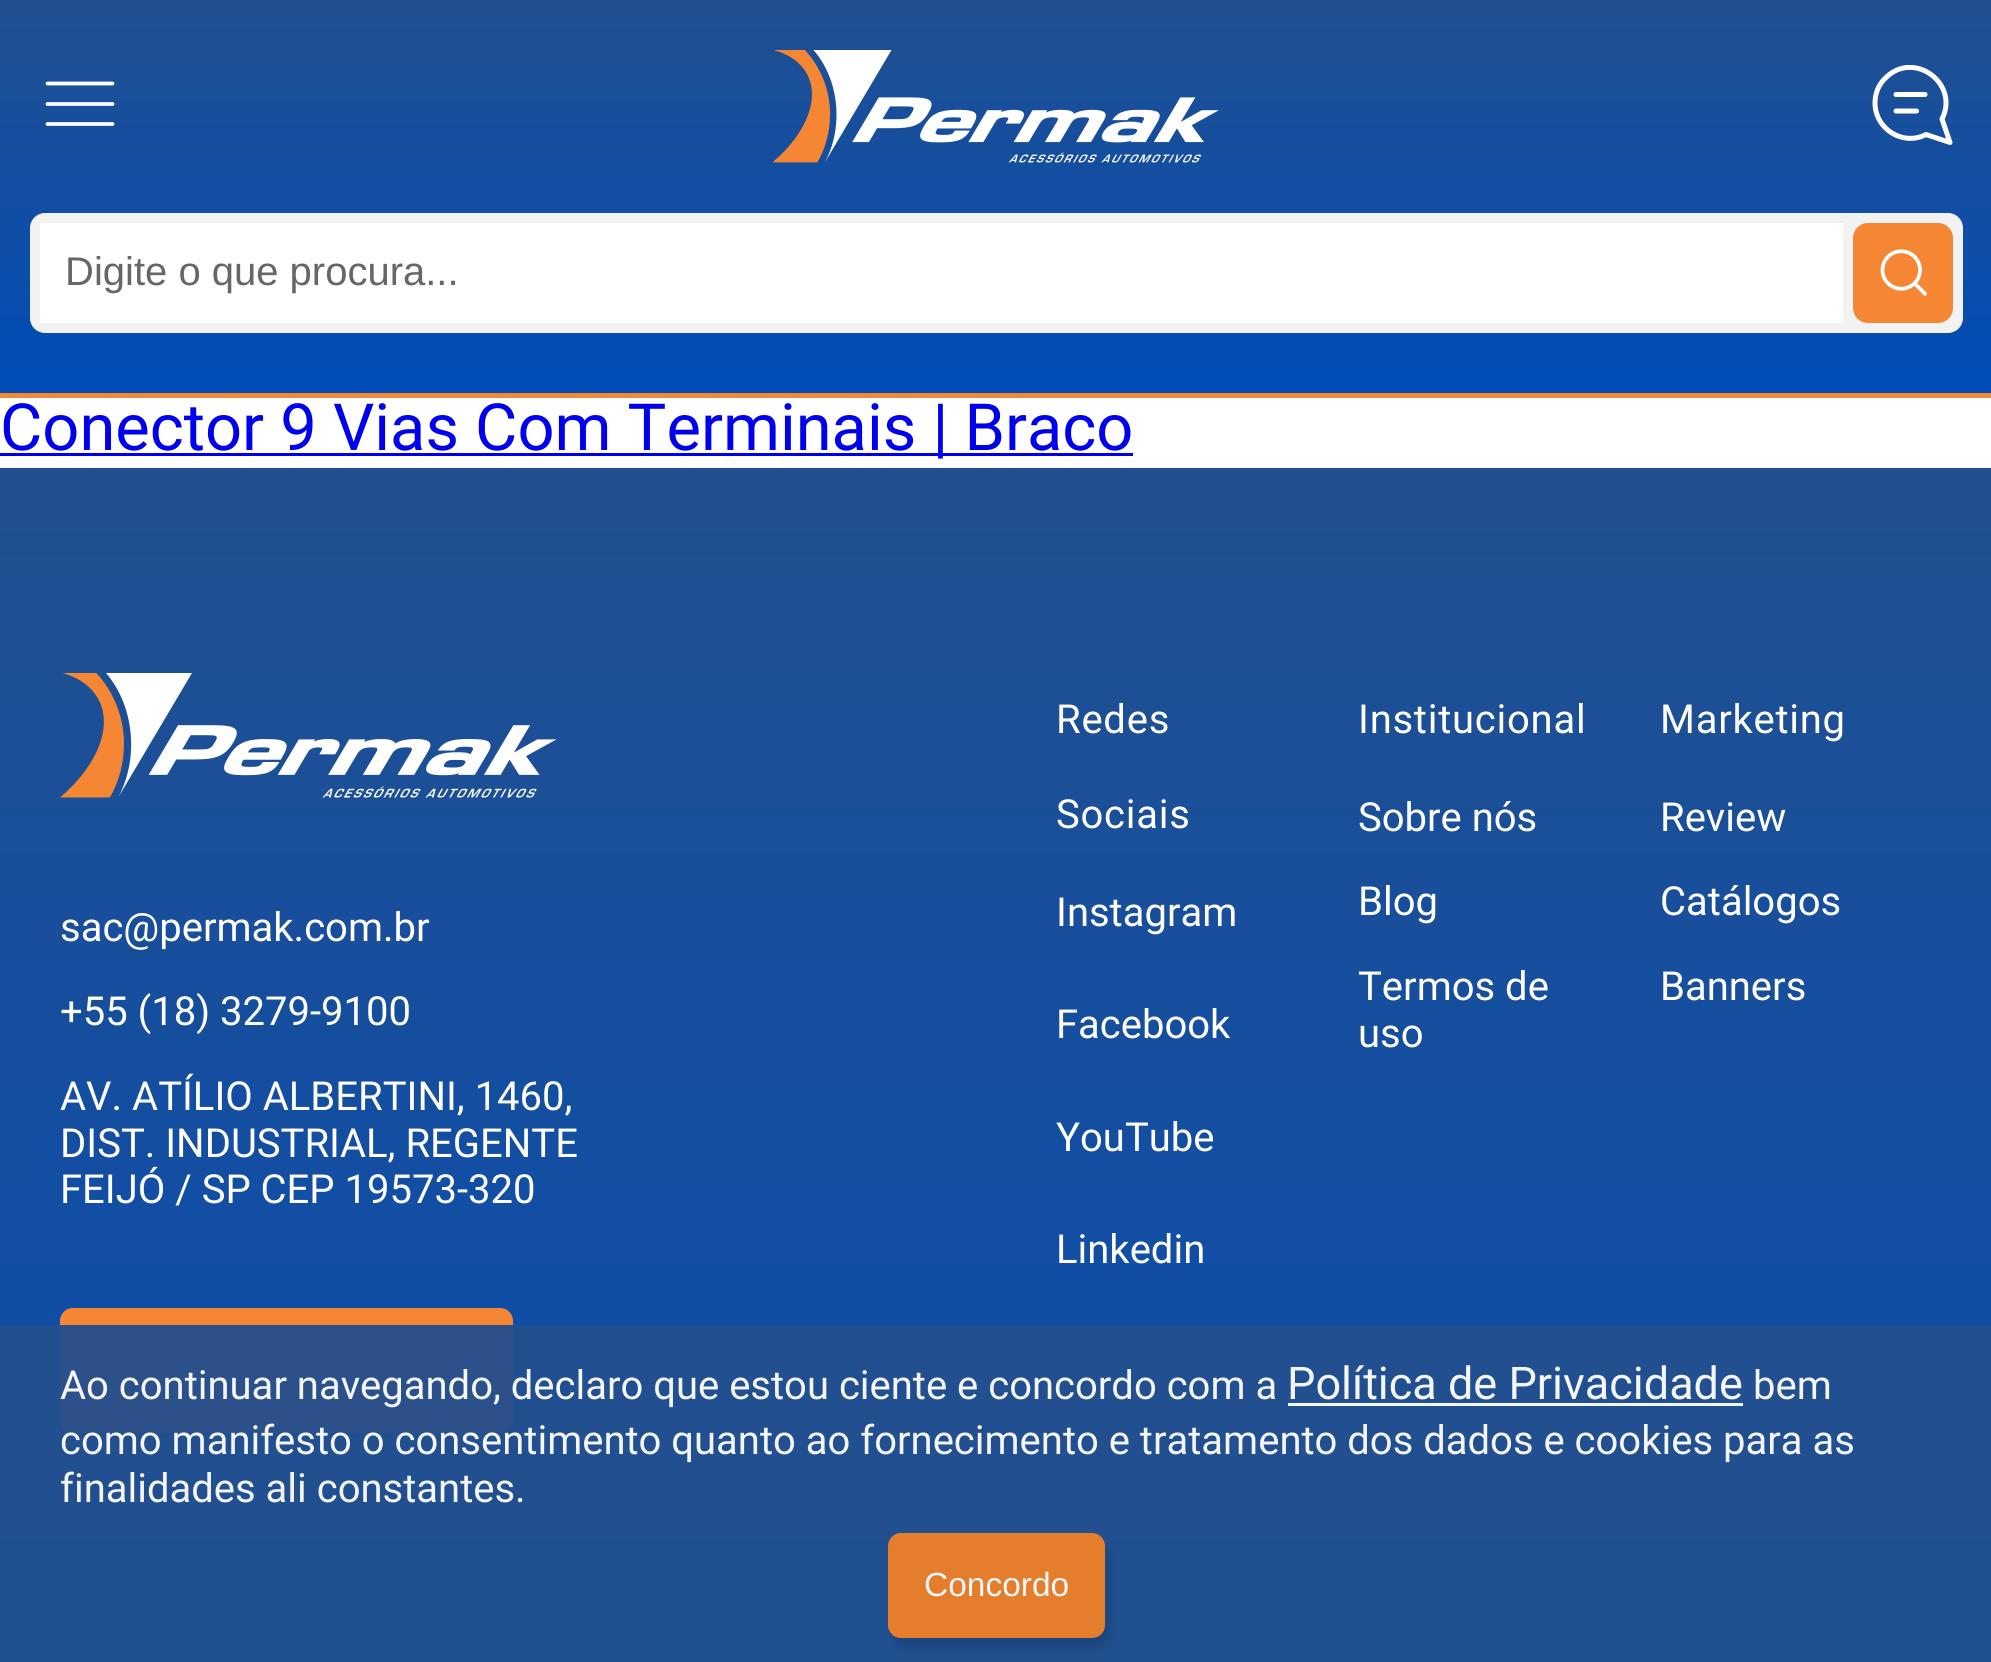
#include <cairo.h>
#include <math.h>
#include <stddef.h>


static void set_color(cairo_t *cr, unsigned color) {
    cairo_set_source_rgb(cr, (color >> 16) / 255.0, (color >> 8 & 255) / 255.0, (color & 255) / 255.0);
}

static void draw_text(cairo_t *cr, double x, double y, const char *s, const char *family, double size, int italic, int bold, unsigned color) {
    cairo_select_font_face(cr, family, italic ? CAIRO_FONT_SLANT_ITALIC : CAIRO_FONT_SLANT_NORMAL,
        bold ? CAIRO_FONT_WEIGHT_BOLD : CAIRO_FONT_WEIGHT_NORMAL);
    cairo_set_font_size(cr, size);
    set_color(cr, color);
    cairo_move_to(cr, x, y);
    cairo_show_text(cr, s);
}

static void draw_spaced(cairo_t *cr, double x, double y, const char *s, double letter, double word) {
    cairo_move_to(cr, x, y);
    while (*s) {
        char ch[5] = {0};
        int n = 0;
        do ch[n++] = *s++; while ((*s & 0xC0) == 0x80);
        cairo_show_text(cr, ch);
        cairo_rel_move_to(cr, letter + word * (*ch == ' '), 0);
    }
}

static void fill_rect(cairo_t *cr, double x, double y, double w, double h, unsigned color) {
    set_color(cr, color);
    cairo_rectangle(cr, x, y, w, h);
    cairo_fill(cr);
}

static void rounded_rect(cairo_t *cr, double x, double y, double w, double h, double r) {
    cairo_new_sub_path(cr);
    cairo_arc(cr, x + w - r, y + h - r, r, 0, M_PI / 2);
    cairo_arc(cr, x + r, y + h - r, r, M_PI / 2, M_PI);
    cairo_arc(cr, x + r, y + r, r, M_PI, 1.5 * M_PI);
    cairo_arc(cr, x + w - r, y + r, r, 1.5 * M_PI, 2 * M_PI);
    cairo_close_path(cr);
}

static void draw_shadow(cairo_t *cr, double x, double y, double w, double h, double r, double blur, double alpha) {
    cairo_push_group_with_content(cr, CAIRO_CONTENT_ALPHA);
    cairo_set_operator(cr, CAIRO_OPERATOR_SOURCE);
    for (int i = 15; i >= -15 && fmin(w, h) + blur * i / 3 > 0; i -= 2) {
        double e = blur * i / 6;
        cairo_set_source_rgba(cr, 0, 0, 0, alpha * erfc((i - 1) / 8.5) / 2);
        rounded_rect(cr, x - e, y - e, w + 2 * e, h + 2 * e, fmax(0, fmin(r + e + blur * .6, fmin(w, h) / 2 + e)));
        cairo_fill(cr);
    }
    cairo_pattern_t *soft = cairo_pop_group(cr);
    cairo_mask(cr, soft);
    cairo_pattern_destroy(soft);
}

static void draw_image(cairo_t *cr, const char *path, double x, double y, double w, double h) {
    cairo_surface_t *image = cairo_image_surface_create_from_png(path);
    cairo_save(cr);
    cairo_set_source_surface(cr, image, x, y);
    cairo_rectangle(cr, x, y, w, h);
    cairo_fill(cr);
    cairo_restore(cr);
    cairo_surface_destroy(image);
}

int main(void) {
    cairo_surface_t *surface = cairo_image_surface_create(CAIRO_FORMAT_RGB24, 1991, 1662);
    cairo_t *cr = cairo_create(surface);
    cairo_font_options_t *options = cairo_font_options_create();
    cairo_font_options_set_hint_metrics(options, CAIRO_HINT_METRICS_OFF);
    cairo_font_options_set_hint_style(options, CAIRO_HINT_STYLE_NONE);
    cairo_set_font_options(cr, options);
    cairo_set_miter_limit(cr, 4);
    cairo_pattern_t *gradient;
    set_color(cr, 0xFFFFFF);
    cairo_paint(cr);
    gradient = cairo_pattern_create_linear(996, 0, 996, 393);
    cairo_pattern_add_color_stop_rgba(gradient, 0, 0.133, 0.31, 0.561, 1);
    cairo_pattern_add_color_stop_rgba(gradient, 1, 0.004, 0.302, 0.722, 1);
    cairo_set_source(cr, gradient);
    cairo_pattern_destroy(gradient);
    cairo_rectangle(cr, 0, 0, 1991, 393);
    cairo_fill(cr);
    fill_rect(cr, 0, 393, 1991, 5, 0xF58634);
    cairo_new_path(cr);
    cairo_move_to(cr, 47.5, 83.5);
    cairo_line_to(cr, 112.5, 83.5);
    cairo_move_to(cr, 47.5, 104);
    cairo_line_to(cr, 112.5, 104);
    cairo_move_to(cr, 47.5, 124);
    cairo_line_to(cr, 112.5, 124);
    set_color(cr, 0xFFFFFF);
    cairo_set_line_width(cr, 3.8);
    cairo_set_line_cap(cr, CAIRO_LINE_CAP_ROUND);
    cairo_set_line_join(cr, CAIRO_LINE_JOIN_ROUND);
    cairo_stroke(cr);
    draw_image(cr, "assets/img1.png", 773, 50, 446, 113);
    cairo_save(cr);
    cairo_rectangle(cr, 1863, 65, 100, 80);
    cairo_clip(cr);
    cairo_new_path(cr);
    cairo_move_to(cr, 1896, 94.5);
    cairo_line_to(cr, 1925, 94.5);
    cairo_move_to(cr, 1896, 111);
    cairo_line_to(cr, 1916.5, 111);
    cairo_move_to(cr, 1875, 103);
    cairo_curve_to(cr, 1875, 129, 1903, 146.5, 1926, 134.5);
    cairo_line_to(cr, 1950, 142.5);
    cairo_line_to(cr, 1942, 119);
    cairo_curve_to(cr, 1960, 83.5, 1913.5, 49.5, 1885.5, 78);
    cairo_curve_to(cr, 1878.5, 84.5, 1875, 93.5, 1875, 103);
    cairo_close_path(cr);
    cairo_set_line_width(cr, 5);
    cairo_stroke(cr);
    cairo_restore(cr);
    set_color(cr, 0xF2F2F2);
    rounded_rect(cr, 30, 213, 1933, 120, 15);
    cairo_fill(cr);
    fill_rect(cr, 40, 223, 1803, 100, 0xFFFFFF);
    draw_text(cr, 65, 285, "Digite o que procura...", "Liberation Sans", 40, 0, 0, 0x666666);
    set_color(cr, 0xF58634);
    rounded_rect(cr, 1853, 223, 100, 100, 15);
    cairo_fill(cr);
    draw_image(cr, "assets/img2.png", 1880, 249, 47, 47);
    fill_rect(cr, 0, 453, 1133, 3, 0x0000EE);
    draw_text(cr, 0, 450, "Conector 9 Vias Com Terminais | Braco", "Roboto", 65, 0, 0, 0x0000EE);
    gradient = cairo_pattern_create_linear(996, 467, 996, 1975);
    cairo_pattern_add_color_stop_rgba(gradient, 0, 0.133, 0.31, 0.561, 1);
    cairo_pattern_add_color_stop_rgba(gradient, 1, 0.004, 0.302, 0.722, 1);
    cairo_set_source(cr, gradient);
    cairo_pattern_destroy(gradient);
    cairo_rectangle(cr, 0, 468, 1991, 1194);
    cairo_fill(cr);
    draw_image(cr, "assets/img3.png", 60, 673, 497, 125);
    draw_text(cr, 60, 941, "sac@permak.com.br", "Roboto", 40, 0, 0, 0xFFFFFF);
    draw_text(cr, 60, 1025, "+55 (18) 3279-9100", "Roboto", 40, 0, 0, 0xFFFFFF);
    draw_text(cr, 60, 1110, "AV. ATÍLIO ALBERTINI, 1460,", "Roboto", 40, 0, 0, 0xFFFFFF);
    draw_text(cr, 60, 1157, "DIST. INDUSTRIAL, REGENTE", "Roboto", 40, 0, 0, 0xFFFFFF);
    draw_text(cr, 60, 1203, "FEIJÓ / SP CEP 19573-320", "Roboto", 40, 0, 0, 0xFFFFFF);
    set_color(cr, 0xF58634);
    rounded_rect(cr, 60, 1308, 453, 125, 13);
    cairo_fill(cr);
    set_color(cr, 0xFFFFFF);
    draw_spaced(cr, 1056, 733, "Redes", 0.75, 0);
    draw_spaced(cr, 1056, 828, "Sociais", 0.75, 0);
    draw_text(cr, 1056, 926, "Instagram", "Roboto", 40, 0, 0, 0xFFFFFF);
    draw_text(cr, 1056, 1038, "Facebook", "Roboto", 40, 0, 0, 0xFFFFFF);
    draw_text(cr, 1056, 1151, "YouTube", "Roboto", 40, 0, 0, 0xFFFFFF);
    draw_text(cr, 1056, 1263, "Linkedin", "Roboto", 40, 0, 0, 0xFFFFFF);
    draw_spaced(cr, 1358, 733, "Institucional", 0.75, 0);
    draw_text(cr, 1358, 831, "Sobre nós", "Roboto", 40, 0, 0, 0xFFFFFF);
    draw_text(cr, 1358, 915, "Blog", "Roboto", 40, 0, 0, 0xFFFFFF);
    draw_text(cr, 1358, 1000, "Termos de", "Roboto", 40, 0, 0, 0xFFFFFF);
    draw_text(cr, 1358, 1047, "uso", "Roboto", 40, 0, 0, 0xFFFFFF);
    draw_spaced(cr, 1660, 733, "Marketing", 0.75, 0);
    draw_text(cr, 1660, 831, "Review", "Roboto", 40, 0, 0, 0xFFFFFF);
    draw_text(cr, 1660, 915, "Catálogos", "Roboto", 40, 0, 0, 0xFFFFFF);
    draw_text(cr, 1660, 1000, "Banners", "Roboto", 40, 0, 0, 0xFFFFFF);
    cairo_set_source_rgba(cr, 0.133, 0.31, 0.561, 0.95);
    cairo_rectangle(cr, 0, 1325, 1991, 337);
    cairo_fill(cr);
    draw_text(cr, 60, 1399, "Ao continuar navegando, declaro que estou ciente e concordo com a", "Roboto", 40, 0, 0, 0xF4F6F9);
    draw_text(cr, 1287, 1399, "Política de Privacidade", "Roboto", 45, 0, 0, 0xF4F6F9);
    fill_rect(cr, 1288, 1403, 455, 3, 0xF3F6FB);
    draw_text(cr, 1753, 1399, "bem", "Roboto", 40, 0, 0, 0xF4F6F9);
    draw_text(cr, 60, 1454, "como manifesto o consentimento quanto ao fornecimento e tratamento dos dados e cookies para as", "Roboto", 40, 0, 0, 0xF4F6F9);
    draw_text(cr, 60, 1502, "finalidades ali constantes.", "Roboto", 40, 0, 0, 0xF4F6F9);
    cairo_save(cr);
    cairo_set_fill_rule(cr, CAIRO_FILL_RULE_EVEN_ODD);
    cairo_new_path(cr);
    cairo_move_to(cr, 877, 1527);
    cairo_line_to(cr, 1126, 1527);
    cairo_line_to(cr, 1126, 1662);
    cairo_line_to(cr, 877, 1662);
    cairo_close_path(cr);
    cairo_move_to(cr, 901, 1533);
    cairo_line_to(cr, 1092, 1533);
    cairo_curve_to(cr, 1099, 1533, 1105, 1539, 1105, 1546);
    cairo_line_to(cr, 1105, 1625);
    cairo_curve_to(cr, 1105, 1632, 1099, 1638, 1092, 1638);
    cairo_line_to(cr, 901, 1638);
    cairo_curve_to(cr, 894, 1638, 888, 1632, 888, 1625);
    cairo_line_to(cr, 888, 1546);
    cairo_curve_to(cr, 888, 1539, 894, 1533, 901, 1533);
    cairo_close_path(cr);
    cairo_clip(cr);
    set_color(cr, 0x000000);
    draw_shadow(cr, 893, 1543, 217, 105, 13, 5, 0.14);
    cairo_restore(cr);
    cairo_set_source_rgba(cr, 0.937, 0.502, 0.153, 0.95);
    rounded_rect(cr, 888, 1533, 217, 105, 13);
    cairo_fill(cr);
    draw_text(cr, 924, 1596, "Concordo", "Liberation Sans", 33.5, 0, 0, 0xF4F6F9);
    cairo_surface_write_to_png(surface, "output.png");
    cairo_font_options_destroy(options);
    cairo_destroy(cr);
    cairo_surface_destroy(surface);
    return 0;
}
